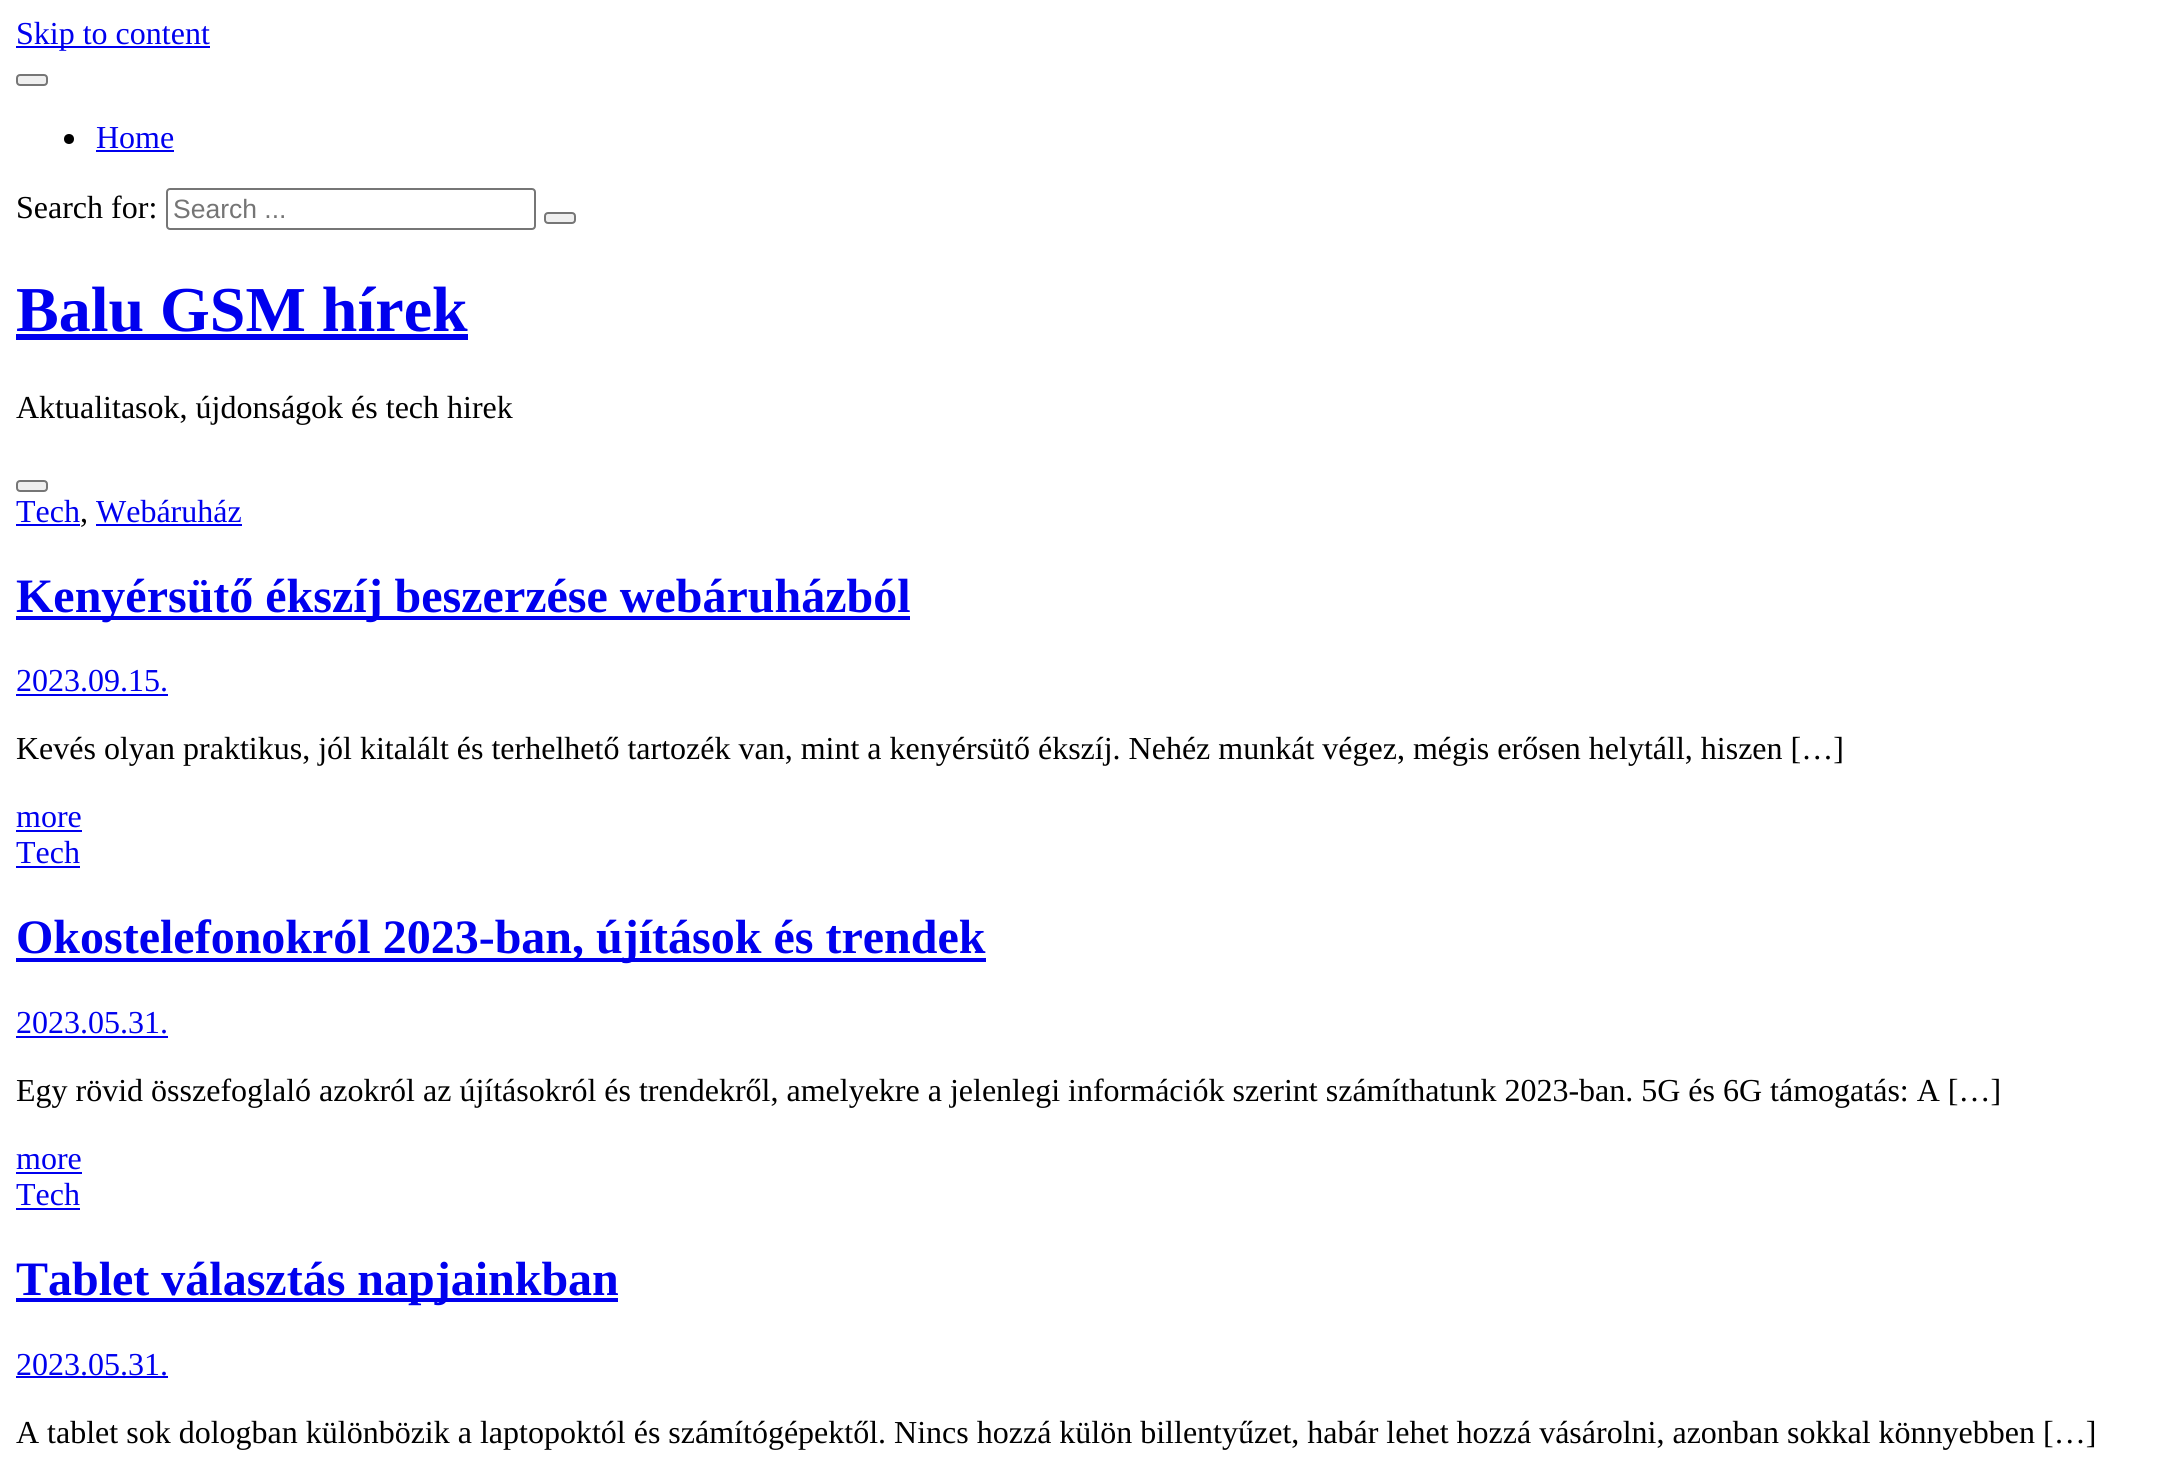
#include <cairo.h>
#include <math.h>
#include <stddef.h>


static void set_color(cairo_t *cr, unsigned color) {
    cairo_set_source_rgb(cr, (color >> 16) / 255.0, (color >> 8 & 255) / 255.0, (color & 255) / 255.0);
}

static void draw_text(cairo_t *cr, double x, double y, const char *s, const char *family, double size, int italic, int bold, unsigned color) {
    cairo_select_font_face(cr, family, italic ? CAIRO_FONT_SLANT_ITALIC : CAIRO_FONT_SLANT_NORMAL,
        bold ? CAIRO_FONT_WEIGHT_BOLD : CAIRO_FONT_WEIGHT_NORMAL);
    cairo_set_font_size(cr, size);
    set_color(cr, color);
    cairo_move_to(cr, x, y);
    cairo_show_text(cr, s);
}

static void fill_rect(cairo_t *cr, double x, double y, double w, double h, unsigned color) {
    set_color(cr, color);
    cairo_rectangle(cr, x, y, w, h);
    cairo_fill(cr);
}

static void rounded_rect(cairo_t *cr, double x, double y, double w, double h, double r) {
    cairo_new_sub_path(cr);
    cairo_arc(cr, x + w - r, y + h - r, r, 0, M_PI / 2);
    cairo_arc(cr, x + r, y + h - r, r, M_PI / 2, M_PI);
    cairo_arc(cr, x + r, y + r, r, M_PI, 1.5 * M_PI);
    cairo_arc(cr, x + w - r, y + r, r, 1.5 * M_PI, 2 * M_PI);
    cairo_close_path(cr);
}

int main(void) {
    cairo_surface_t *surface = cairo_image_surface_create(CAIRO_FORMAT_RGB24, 2168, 1478);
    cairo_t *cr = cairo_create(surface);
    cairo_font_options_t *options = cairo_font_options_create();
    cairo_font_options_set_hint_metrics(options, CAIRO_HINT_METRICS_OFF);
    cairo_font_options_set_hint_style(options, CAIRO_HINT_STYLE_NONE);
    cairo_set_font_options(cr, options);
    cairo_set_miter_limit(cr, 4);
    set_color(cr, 0xFFFFFF);
    cairo_paint(cr);
    fill_rect(cr, 16, 46, 194, 2, 0x0000EE);
    draw_text(cr, 16, 44, "Skip to content", "Liberation Serif", 32, 0, 0, 0x0000EE);
    set_color(cr, 0xEFEFEF);
    rounded_rect(cr, 17, 75, 30, 10, 3);
    cairo_fill_preserve(cr);
    set_color(cr, 0x767676);
    cairo_stroke(cr);
    set_color(cr, 0x000000);
    cairo_arc(cr, 69, 139, 5, 0, 2 * M_PI);
    cairo_fill(cr);
    draw_text(cr, 96, 148, "Home", "Liberation Serif", 32, 0, 0, 0x0000EE);
    fill_rect(cr, 96, 150, 78, 2, 0x0000EE);
    draw_text(cr, 16, 218, "Search for:", "Liberation Serif", 32, 0, 0, 0x000000);
    rounded_rect(cr, 167, 189, 368, 40, 3);
    set_color(cr, 0x767676);
    cairo_stroke(cr);
    draw_text(cr, 173, 218, "Search ...", "Liberation Sans", 26.5, 0, 0, 0x757575);
    set_color(cr, 0xEFEFEF);
    rounded_rect(cr, 545, 213, 30, 10, 3);
    cairo_fill_preserve(cr);
    set_color(cr, 0x767676);
    cairo_stroke(cr);
    draw_text(cr, 16, 331, "Balu GSM hírek", "Liberation Serif", 64, 0, 1, 0x0000EE);
    fill_rect(cr, 16, 334, 452, 6, 0x0000EE);
    draw_text(cr, 16, 418, "Aktualitasok, újdonságok és tech hirek", "Liberation Serif", 32, 0, 0, 0x000000);
    set_color(cr, 0xEFEFEF);
    rounded_rect(cr, 17, 481, 30, 10, 3);
    cairo_fill_preserve(cr);
    set_color(cr, 0x767676);
    cairo_stroke(cr);
    draw_text(cr, 16, 522, "Tech", "Liberation Serif", 32, 0, 0, 0x0000EE);
    draw_text(cr, 80, 522, ",", "Liberation Serif", 32, 0, 0, 0x000000);
    fill_rect(cr, 16, 524, 64, 2, 0x0000EE);
    fill_rect(cr, 96, 524, 146, 2, 0x0000EE);
    draw_text(cr, 96, 522, "Webáruház", "Liberation Serif", 32, 0, 0, 0x0000EE);
    fill_rect(cr, 16, 616, 894, 4, 0x0000EE);
    draw_text(cr, 16, 612, "Kenyérsütő ékszíj beszerzése webáruházból", "Liberation Serif", 48, 0, 1, 0x0000EE);
    draw_text(cr, 16, 691, "2023.09.15.", "Liberation Serif", 32, 0, 0, 0x0000EE);
    fill_rect(cr, 16, 694, 152, 2, 0x0000EE);
    draw_text(cr, 16, 759, "Kevés olyan praktikus, jól kitalált és terhelhető tartozék van, mint a kenyérsütő ékszíj. Nehéz munkát végez, mégis erősen helytáll, hiszen […]", "Liberation Serif", 32, 0, 0, 0x000000);
    draw_text(cr, 16, 827, "more", "Liberation Serif", 32, 0, 0, 0x0000EE);
    fill_rect(cr, 16, 830, 66, 2, 0x0000EE);
    draw_text(cr, 16, 863, "Tech", "Liberation Serif", 32, 0, 0, 0x0000EE);
    fill_rect(cr, 16, 866, 64, 2, 0x0000EE);
    fill_rect(cr, 16, 958, 970, 4, 0x0000EE);
    draw_text(cr, 16, 953, "Okostelefonokról 2023-ban, újítások és trendek", "Liberation Serif", 48, 0, 1, 0x0000EE);
    draw_text(cr, 16, 1033, "2023.05.31.", "Liberation Serif", 32, 0, 0, 0x0000EE);
    fill_rect(cr, 16, 1036, 152, 2, 0x0000EE);
    draw_text(cr, 16, 1101, "Egy rövid összefoglaló azokról az újításokról és trendekről, amelyekre a jelenlegi információk szerint számíthatunk 2023-ban. 5G és 6G támogatás: A […]", "Liberation Serif", 32, 0, 0, 0x000000);
    draw_text(cr, 16, 1169, "more", "Liberation Serif", 32, 0, 0, 0x0000EE);
    fill_rect(cr, 16, 1172, 66, 2, 0x0000EE);
    draw_text(cr, 16, 1205, "Tech", "Liberation Serif", 32, 0, 0, 0x0000EE);
    fill_rect(cr, 16, 1208, 64, 2, 0x0000EE);
    fill_rect(cr, 16, 1298, 602, 4, 0x0000EE);
    draw_text(cr, 16, 1295, "Tablet választás napjainkban", "Liberation Serif", 48, 0, 1, 0x0000EE);
    draw_text(cr, 16, 1375, "2023.05.31.", "Liberation Serif", 32, 0, 0, 0x0000EE);
    fill_rect(cr, 16, 1376, 152, 2, 0x0000EE);
    draw_text(cr, 16, 1443, "A tablet sok dologban különbözik a laptopoktól és számítógépektől. Nincs hozzá külön billentyűzet, habár lehet hozzá vásárolni, azonban sokkal könnyebben […]", "Liberation Serif", 32, 0, 0, 0x000000);
    cairo_surface_write_to_png(surface, "output.png");
    cairo_font_options_destroy(options);
    cairo_destroy(cr);
    cairo_surface_destroy(surface);
    return 0;
}
